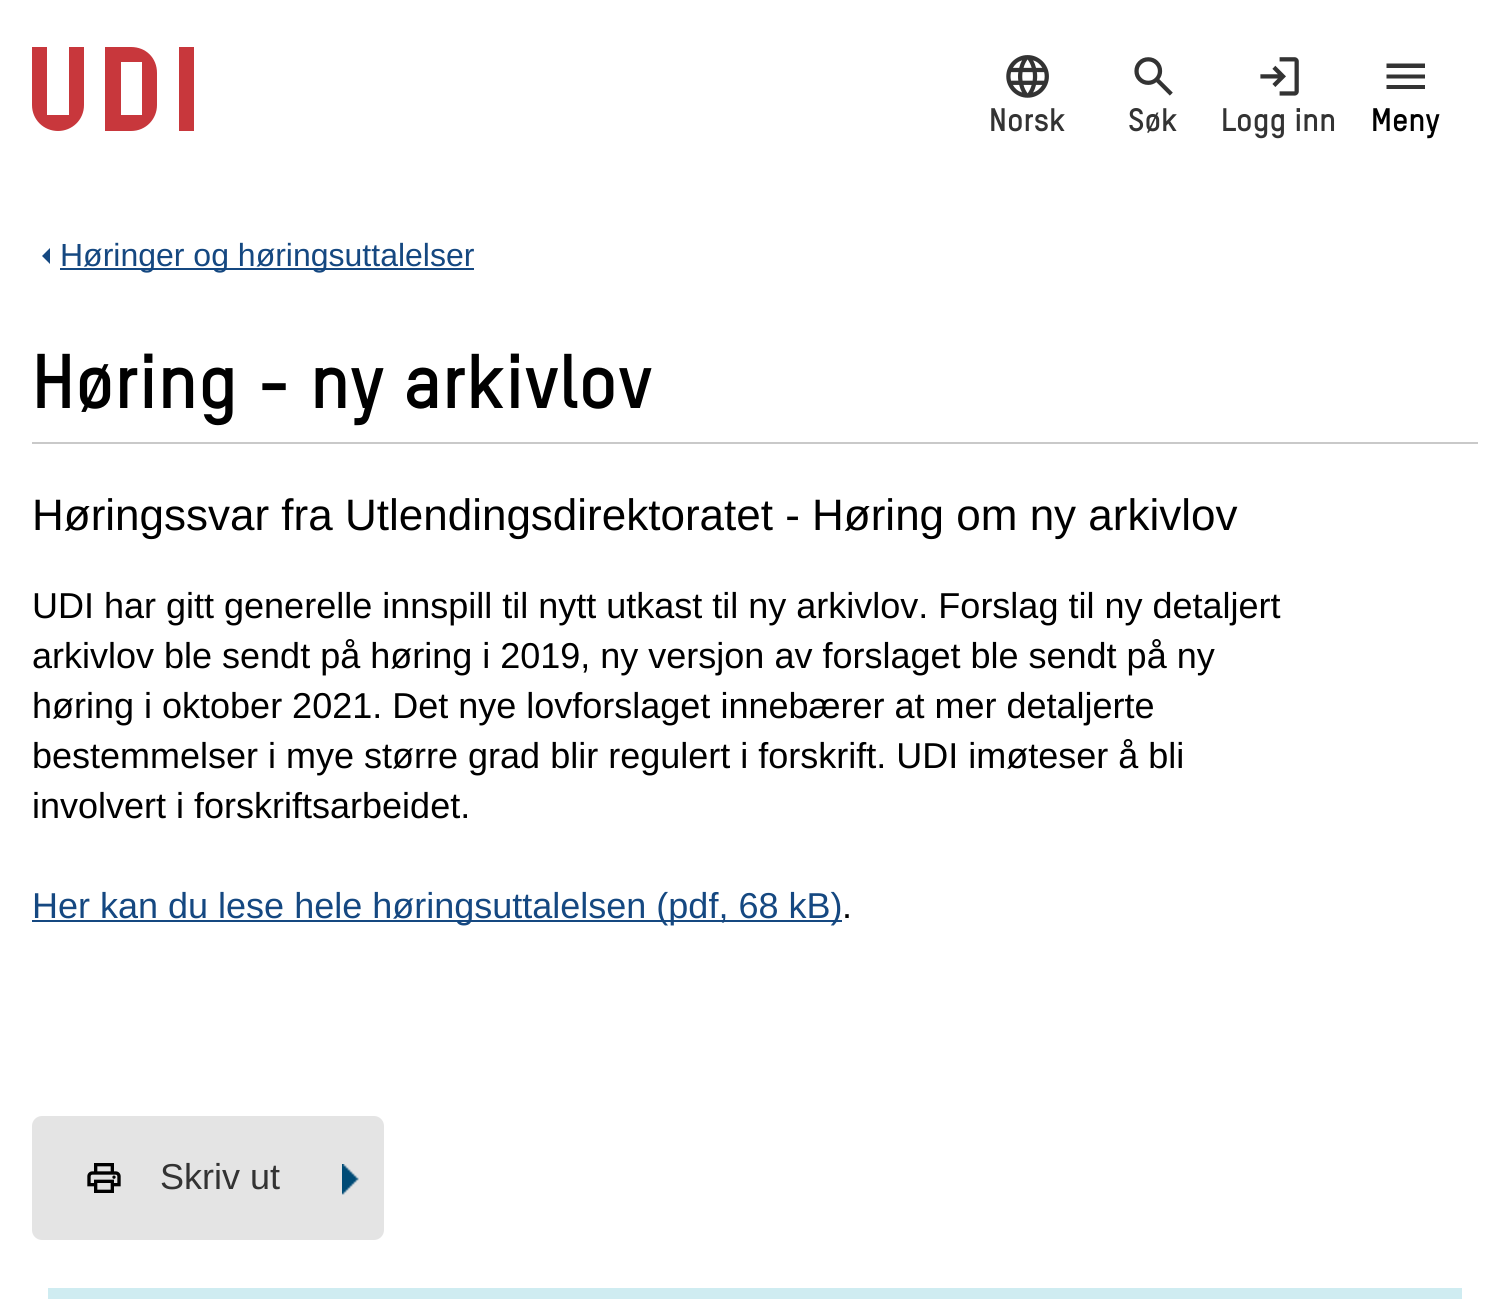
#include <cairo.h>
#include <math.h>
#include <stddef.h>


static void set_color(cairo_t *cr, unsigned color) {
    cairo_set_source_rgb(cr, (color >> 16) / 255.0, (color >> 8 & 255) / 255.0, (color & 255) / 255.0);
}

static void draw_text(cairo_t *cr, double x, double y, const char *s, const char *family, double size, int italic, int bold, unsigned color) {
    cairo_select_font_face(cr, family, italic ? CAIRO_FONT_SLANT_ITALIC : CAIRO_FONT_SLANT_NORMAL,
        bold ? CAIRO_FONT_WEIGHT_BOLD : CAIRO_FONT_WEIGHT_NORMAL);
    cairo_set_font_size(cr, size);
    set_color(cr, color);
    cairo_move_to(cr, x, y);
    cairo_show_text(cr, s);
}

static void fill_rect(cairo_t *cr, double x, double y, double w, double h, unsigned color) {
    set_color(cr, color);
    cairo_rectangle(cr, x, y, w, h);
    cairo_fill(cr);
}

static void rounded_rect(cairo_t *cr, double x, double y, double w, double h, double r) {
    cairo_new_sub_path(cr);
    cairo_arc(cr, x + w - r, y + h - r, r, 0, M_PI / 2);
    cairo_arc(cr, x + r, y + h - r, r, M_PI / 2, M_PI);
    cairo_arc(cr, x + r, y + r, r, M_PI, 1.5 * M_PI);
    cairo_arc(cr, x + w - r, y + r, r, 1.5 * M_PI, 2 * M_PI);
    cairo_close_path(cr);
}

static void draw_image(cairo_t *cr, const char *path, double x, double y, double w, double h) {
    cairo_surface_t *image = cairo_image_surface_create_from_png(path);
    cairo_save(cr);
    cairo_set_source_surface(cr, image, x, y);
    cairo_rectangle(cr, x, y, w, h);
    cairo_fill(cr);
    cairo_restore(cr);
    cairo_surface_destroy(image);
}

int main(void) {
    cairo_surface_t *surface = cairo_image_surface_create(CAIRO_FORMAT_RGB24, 1509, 1299);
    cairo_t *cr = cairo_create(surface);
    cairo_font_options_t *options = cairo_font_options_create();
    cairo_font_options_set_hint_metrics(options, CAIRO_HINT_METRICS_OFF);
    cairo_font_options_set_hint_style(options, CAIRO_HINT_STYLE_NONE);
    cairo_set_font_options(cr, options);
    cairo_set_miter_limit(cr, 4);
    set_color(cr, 0xFFFFFF);
    cairo_paint(cr);
    set_color(cr, 0xC8373C);
    cairo_new_path(cr);
    cairo_move_to(cr, 84, 105);
    cairo_curve_to(cr, 84, 120, 72, 131, 58, 131);
    cairo_curve_to(cr, 44, 131, 32, 120, 32, 105);
    cairo_line_to(cr, 32, 47);
    cairo_line_to(cr, 47, 47);
    cairo_line_to(cr, 47, 115);
    cairo_line_to(cr, 69, 115);
    cairo_line_to(cr, 69, 47);
    cairo_line_to(cr, 84, 47);
    cairo_close_path(cr);
    cairo_move_to(cr, 157, 73);
    cairo_curve_to(cr, 157, 58, 146, 47, 131, 47);
    cairo_line_to(cr, 105, 47);
    cairo_line_to(cr, 105, 131);
    cairo_line_to(cr, 131, 131);
    cairo_curve_to(cr, 146, 131, 157, 119, 157, 105);
    cairo_close_path(cr);
    cairo_move_to(cr, 142, 115);
    cairo_line_to(cr, 121, 115);
    cairo_line_to(cr, 121, 62);
    cairo_line_to(cr, 142, 62);
    cairo_close_path(cr);
    cairo_fill(cr);
    fill_rect(cr, 179, 47, 15, 84, 0xC8373C);
    draw_image(cr, "assets/img1.png", 1006, 55, 43, 43);
    draw_text(cr, 989, 131, "Norsk", "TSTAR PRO", 32, 0, 1, 0x333333);
    draw_image(cr, "assets/img2.png", 1134, 57, 39, 39);
    draw_text(cr, 1128, 131, "Søk", "TSTAR PRO", 32, 0, 1, 0x333333);
    draw_image(cr, "assets/img3.png", 1260, 57, 39, 39);
    draw_text(cr, 1221, 131, "Logg inn", "TSTAR PRO", 32, 0, 1, 0x333333);
    cairo_new_path(cr);
    cairo_move_to(cr, 1386.5, 89);
    cairo_line_to(cr, 1386.5, 85);
    cairo_line_to(cr, 1425, 85);
    cairo_line_to(cr, 1425, 89);
    cairo_close_path(cr);
    cairo_move_to(cr, 1386.5, 78.5);
    cairo_line_to(cr, 1386.5, 74.5);
    cairo_line_to(cr, 1425, 74.5);
    cairo_line_to(cr, 1425, 78.5);
    cairo_close_path(cr);
    cairo_move_to(cr, 1386.5, 68);
    cairo_line_to(cr, 1386.5, 63.5);
    cairo_line_to(cr, 1425, 63.5);
    cairo_line_to(cr, 1425, 68);
    cairo_close_path(cr);
    cairo_fill(cr);
    draw_text(cr, 1371, 131, "Meny", "TSTAR PRO", 32, 0, 1, 0x000000);
    set_color(cr, 0x154881);
    cairo_new_path(cr);
    cairo_move_to(cr, 50, 248);
    cairo_line_to(cr, 50, 264);
    cairo_line_to(cr, 42, 256);
    cairo_close_path(cr);
    cairo_fill(cr);
    fill_rect(cr, 60, 268, 414, 2, 0x154881);
    draw_text(cr, 60, 266, "Høringer og høringsuttalelser", "Liberation Sans", 32, 0, 0, 0x154881);
    draw_text(cr, 32, 408, "Høring - ny arkivlov", "TSTAR PRO", 76, 0, 1, 0x000000);
    fill_rect(cr, 32, 442, 1446, 2, 0xC9C9C9);
    draw_text(cr, 32, 530, "Høringssvar fra Utlendingsdirektoratet - Høring om ny arkivlov", "Liberation Sans", 44, 0, 0, 0x000000);
    draw_text(cr, 32, 618, "UDI har gitt generelle innspill til nytt utkast til ny arkivlov. Forslag til ny detaljert", "Liberation Sans", 36, 0, 0, 0x000000);
    draw_text(cr, 32, 668, "arkivlov ble sendt på høring i 2019, ny versjon av forslaget ble sendt på ny", "Liberation Sans", 36, 0, 0, 0x000000);
    draw_text(cr, 32, 718, "høring i oktober 2021. Det nye lovforslaget innebærer at mer detaljerte", "Liberation Sans", 36, 0, 0, 0x000000);
    draw_text(cr, 32, 768, "bestemmelser i mye større grad blir regulert i forskrift. UDI imøteser å bli", "Liberation Sans", 36, 0, 0, 0x000000);
    draw_text(cr, 32, 818, "involvert i forskriftsarbeidet.", "Liberation Sans", 36, 0, 0, 0x000000);
    fill_rect(cr, 32, 920, 810, 2, 0x154881);
    draw_text(cr, 32, 918, "Her kan du lese hele høringsuttalelsen (pdf, 68 kB)", "Liberation Sans", 36, 0, 0, 0x154881);
    draw_text(cr, 842, 918, ".", "Liberation Sans", 36, 0, 0, 0x000000);
    set_color(cr, 0xE4E4E4);
    rounded_rect(cr, 32, 1116, 352, 124, 10);
    cairo_fill(cr);
    draw_image(cr, "assets/img4.png", 87, 1163, 34, 30);
    draw_text(cr, 160, 1189, "Skriv ut", "Liberation Sans", 36, 0, 0, 0x333333);
    draw_image(cr, "assets/img5.png", 342, 1164, 17, 31);
    fill_rect(cr, 48, 1288, 1414, 11, 0xCFECF1);
    cairo_surface_write_to_png(surface, "output.png");
    cairo_font_options_destroy(options);
    cairo_destroy(cr);
    cairo_surface_destroy(surface);
    return 0;
}
